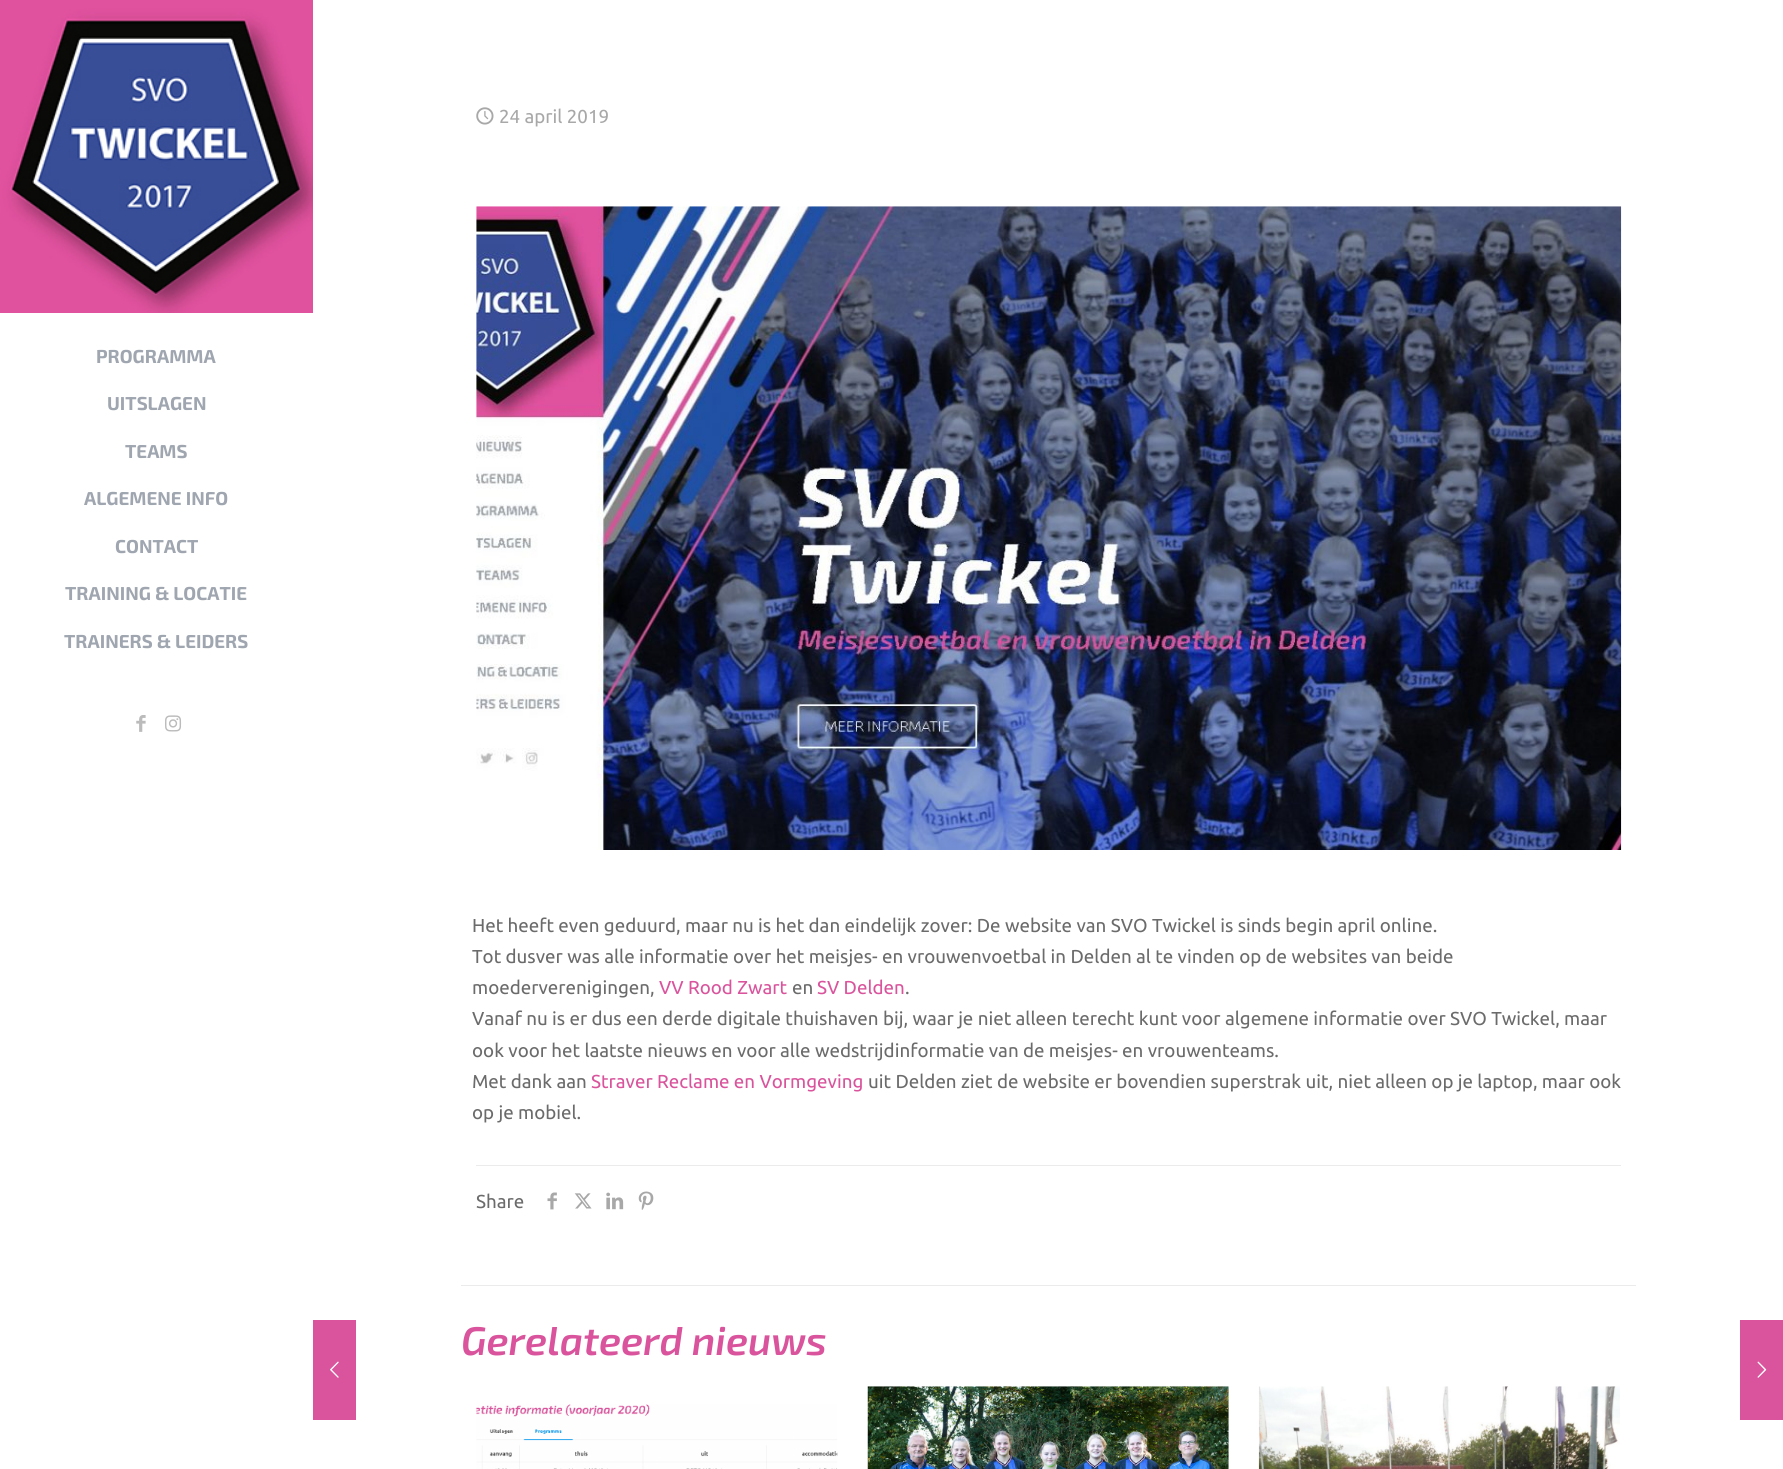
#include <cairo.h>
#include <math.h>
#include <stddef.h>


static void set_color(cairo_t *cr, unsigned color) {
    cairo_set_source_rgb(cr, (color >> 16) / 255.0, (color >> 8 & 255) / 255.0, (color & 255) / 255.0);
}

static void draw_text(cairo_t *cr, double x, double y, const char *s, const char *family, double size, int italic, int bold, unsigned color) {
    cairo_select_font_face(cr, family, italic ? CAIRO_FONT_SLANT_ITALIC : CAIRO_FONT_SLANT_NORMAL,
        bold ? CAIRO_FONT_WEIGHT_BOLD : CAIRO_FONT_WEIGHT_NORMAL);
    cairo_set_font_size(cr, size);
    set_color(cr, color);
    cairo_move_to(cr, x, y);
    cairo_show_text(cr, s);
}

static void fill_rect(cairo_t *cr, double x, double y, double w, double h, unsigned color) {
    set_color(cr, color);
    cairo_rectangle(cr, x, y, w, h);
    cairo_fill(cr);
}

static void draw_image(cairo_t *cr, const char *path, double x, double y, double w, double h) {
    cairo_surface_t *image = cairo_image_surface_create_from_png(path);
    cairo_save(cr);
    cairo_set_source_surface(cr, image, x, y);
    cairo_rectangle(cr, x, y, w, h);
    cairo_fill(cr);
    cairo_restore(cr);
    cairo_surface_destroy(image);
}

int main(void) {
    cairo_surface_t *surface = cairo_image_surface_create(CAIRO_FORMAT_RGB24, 1783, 1469);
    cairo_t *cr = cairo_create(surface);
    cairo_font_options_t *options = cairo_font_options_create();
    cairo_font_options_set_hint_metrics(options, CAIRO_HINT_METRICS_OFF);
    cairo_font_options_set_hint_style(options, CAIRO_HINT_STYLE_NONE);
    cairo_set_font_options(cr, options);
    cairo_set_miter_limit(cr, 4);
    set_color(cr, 0xFFFFFF);
    cairo_paint(cr);
    draw_image(cr, "assets/img1.png", 0, 0, 313, 313);
    draw_text(cr, 96, 363, "PROGRAMMA", "Exo 2", 18.75, 0, 1, 0x9FA6B0);
    draw_text(cr, 107, 410, "UITSLAGEN", "Exo 2", 18.75, 0, 1, 0x9FA6B0);
    draw_text(cr, 125, 458, "TEAMS", "Exo 2", 18.75, 0, 1, 0x9FA6B0);
    draw_text(cr, 84, 505, "ALGEMENE INFO", "Exo 2", 18.75, 0, 1, 0x9FA6B0);
    draw_text(cr, 115, 553, "CONTACT", "Exo 2", 18.75, 0, 1, 0x9FA6B0);
    draw_text(cr, 65, 600, "TRAINING & LOCATIE", "Exo 2", 18.75, 0, 1, 0x9FA6B0);
    draw_text(cr, 64, 648, "TRAINERS & LEIDERS", "Exo 2", 18.75, 0, 1, 0x9FA6B0);
    draw_image(cr, "assets/img2.png", 136, 715, 10, 17);
    draw_image(cr, "assets/img3.png", 165, 715, 17, 17);
    draw_image(cr, "assets/img4.png", 476, 107, 18, 18);
    draw_text(cr, 499, 123, "24 april 2019", "Ubuntu", 18.75, 0, 0, 0xA8A8A8);
    draw_image(cr, "assets/img5.png", 476, 206, 1146, 644);
    draw_text(cr, 472, 932, "Het heeft even geduurd, maar nu is het dan eindelijk zover: De website van SVO Twickel is sinds begin april online.", "Ubuntu", 18.75, 0, 0, 0x6B6B6B);
    draw_text(cr, 472, 963, "Tot dusver was alle informatie over het meisjes- en vrouwenvoetbal in Delden al te vinden op de websites van beide", "Ubuntu", 18.75, 0, 0, 0x6B6B6B);
    draw_text(cr, 472, 994, "moederverenigingen,", "Ubuntu", 18.75, 0, 0, 0x6B6B6B);
    draw_text(cr, 659, 994, "VV Rood Zwart", "Ubuntu", 18.75, 0, 0, 0xD9549C);
    draw_text(cr, 792, 994, "en", "Ubuntu", 18.75, 0, 0, 0x6B6B6B);
    draw_text(cr, 817, 994, "SV Delden", "Ubuntu", 18.75, 0, 0, 0xD9549C);
    draw_text(cr, 905, 994, ".", "Ubuntu", 18.75, 0, 0, 0x6B6B6B);
    draw_text(cr, 472, 1025, "Vanaf nu is er dus een derde digitale thuishaven bij, waar je niet alleen terecht kunt voor algemene informatie over SVO Twickel, maar", "Ubuntu", 18.75, 0, 0, 0x6B6B6B);
    draw_text(cr, 472, 1057, "ook voor het laatste nieuws en voor alle wedstrijdinformatie van de meisjes- en vrouwenteams.", "Ubuntu", 18.75, 0, 0, 0x6B6B6B);
    draw_text(cr, 472, 1088, "Met dank aan", "Ubuntu", 18.75, 0, 0, 0x6B6B6B);
    draw_text(cr, 591, 1088, "Straver Reclame en Vormgeving", "Ubuntu", 18.75, 0, 0, 0xD9549C);
    draw_text(cr, 868, 1088, "uit Delden ziet de website er bovendien superstrak uit, niet alleen op je laptop, maar ook", "Ubuntu", 18.75, 0, 0, 0x6B6B6B);
    draw_text(cr, 472, 1119, "op je mobiel.", "Ubuntu", 18.75, 0, 0, 0x6B6B6B);
    fill_rect(cr, 476, 1165, 1145, 1, 0xEBEBEB);
    draw_text(cr, 476, 1208, "Share", "Ubuntu", 18.75, 0, 0, 0x6B6B6B);
    draw_image(cr, "assets/img6.png", 547, 1192, 10, 18);
    draw_image(cr, "assets/img7.png", 574, 1193, 18, 16);
    draw_image(cr, "assets/img8.png", 606, 1192, 18, 18);
    draw_image(cr, "assets/img9.png", 638, 1191, 16, 19);
    fill_rect(cr, 461, 1285, 1175, 1, 0xEBEBEB);
    draw_text(cr, 461, 1355, "Gerelateerd nieuws", "Exo 2 SemiBold", 40, 1, 0, 0xD9549C);
    draw_image(cr, "assets/img10.png", 476, 1404, 362, 65);
    draw_image(cr, "assets/img11.png", 867, 1386, 362, 83);
    draw_image(cr, "assets/img12.png", 1258, 1386, 362, 83);
    fill_rect(cr, 313, 1320, 43, 100, 0xD9549C);
    draw_image(cr, "assets/img13.png", 330, 1361, 9, 17);
    fill_rect(cr, 1740, 1320, 43, 100, 0xD9549C);
    draw_image(cr, "assets/img14.png", 1757, 1361, 10, 17);
    cairo_surface_write_to_png(surface, "output.png");
    cairo_font_options_destroy(options);
    cairo_destroy(cr);
    cairo_surface_destroy(surface);
    return 0;
}
